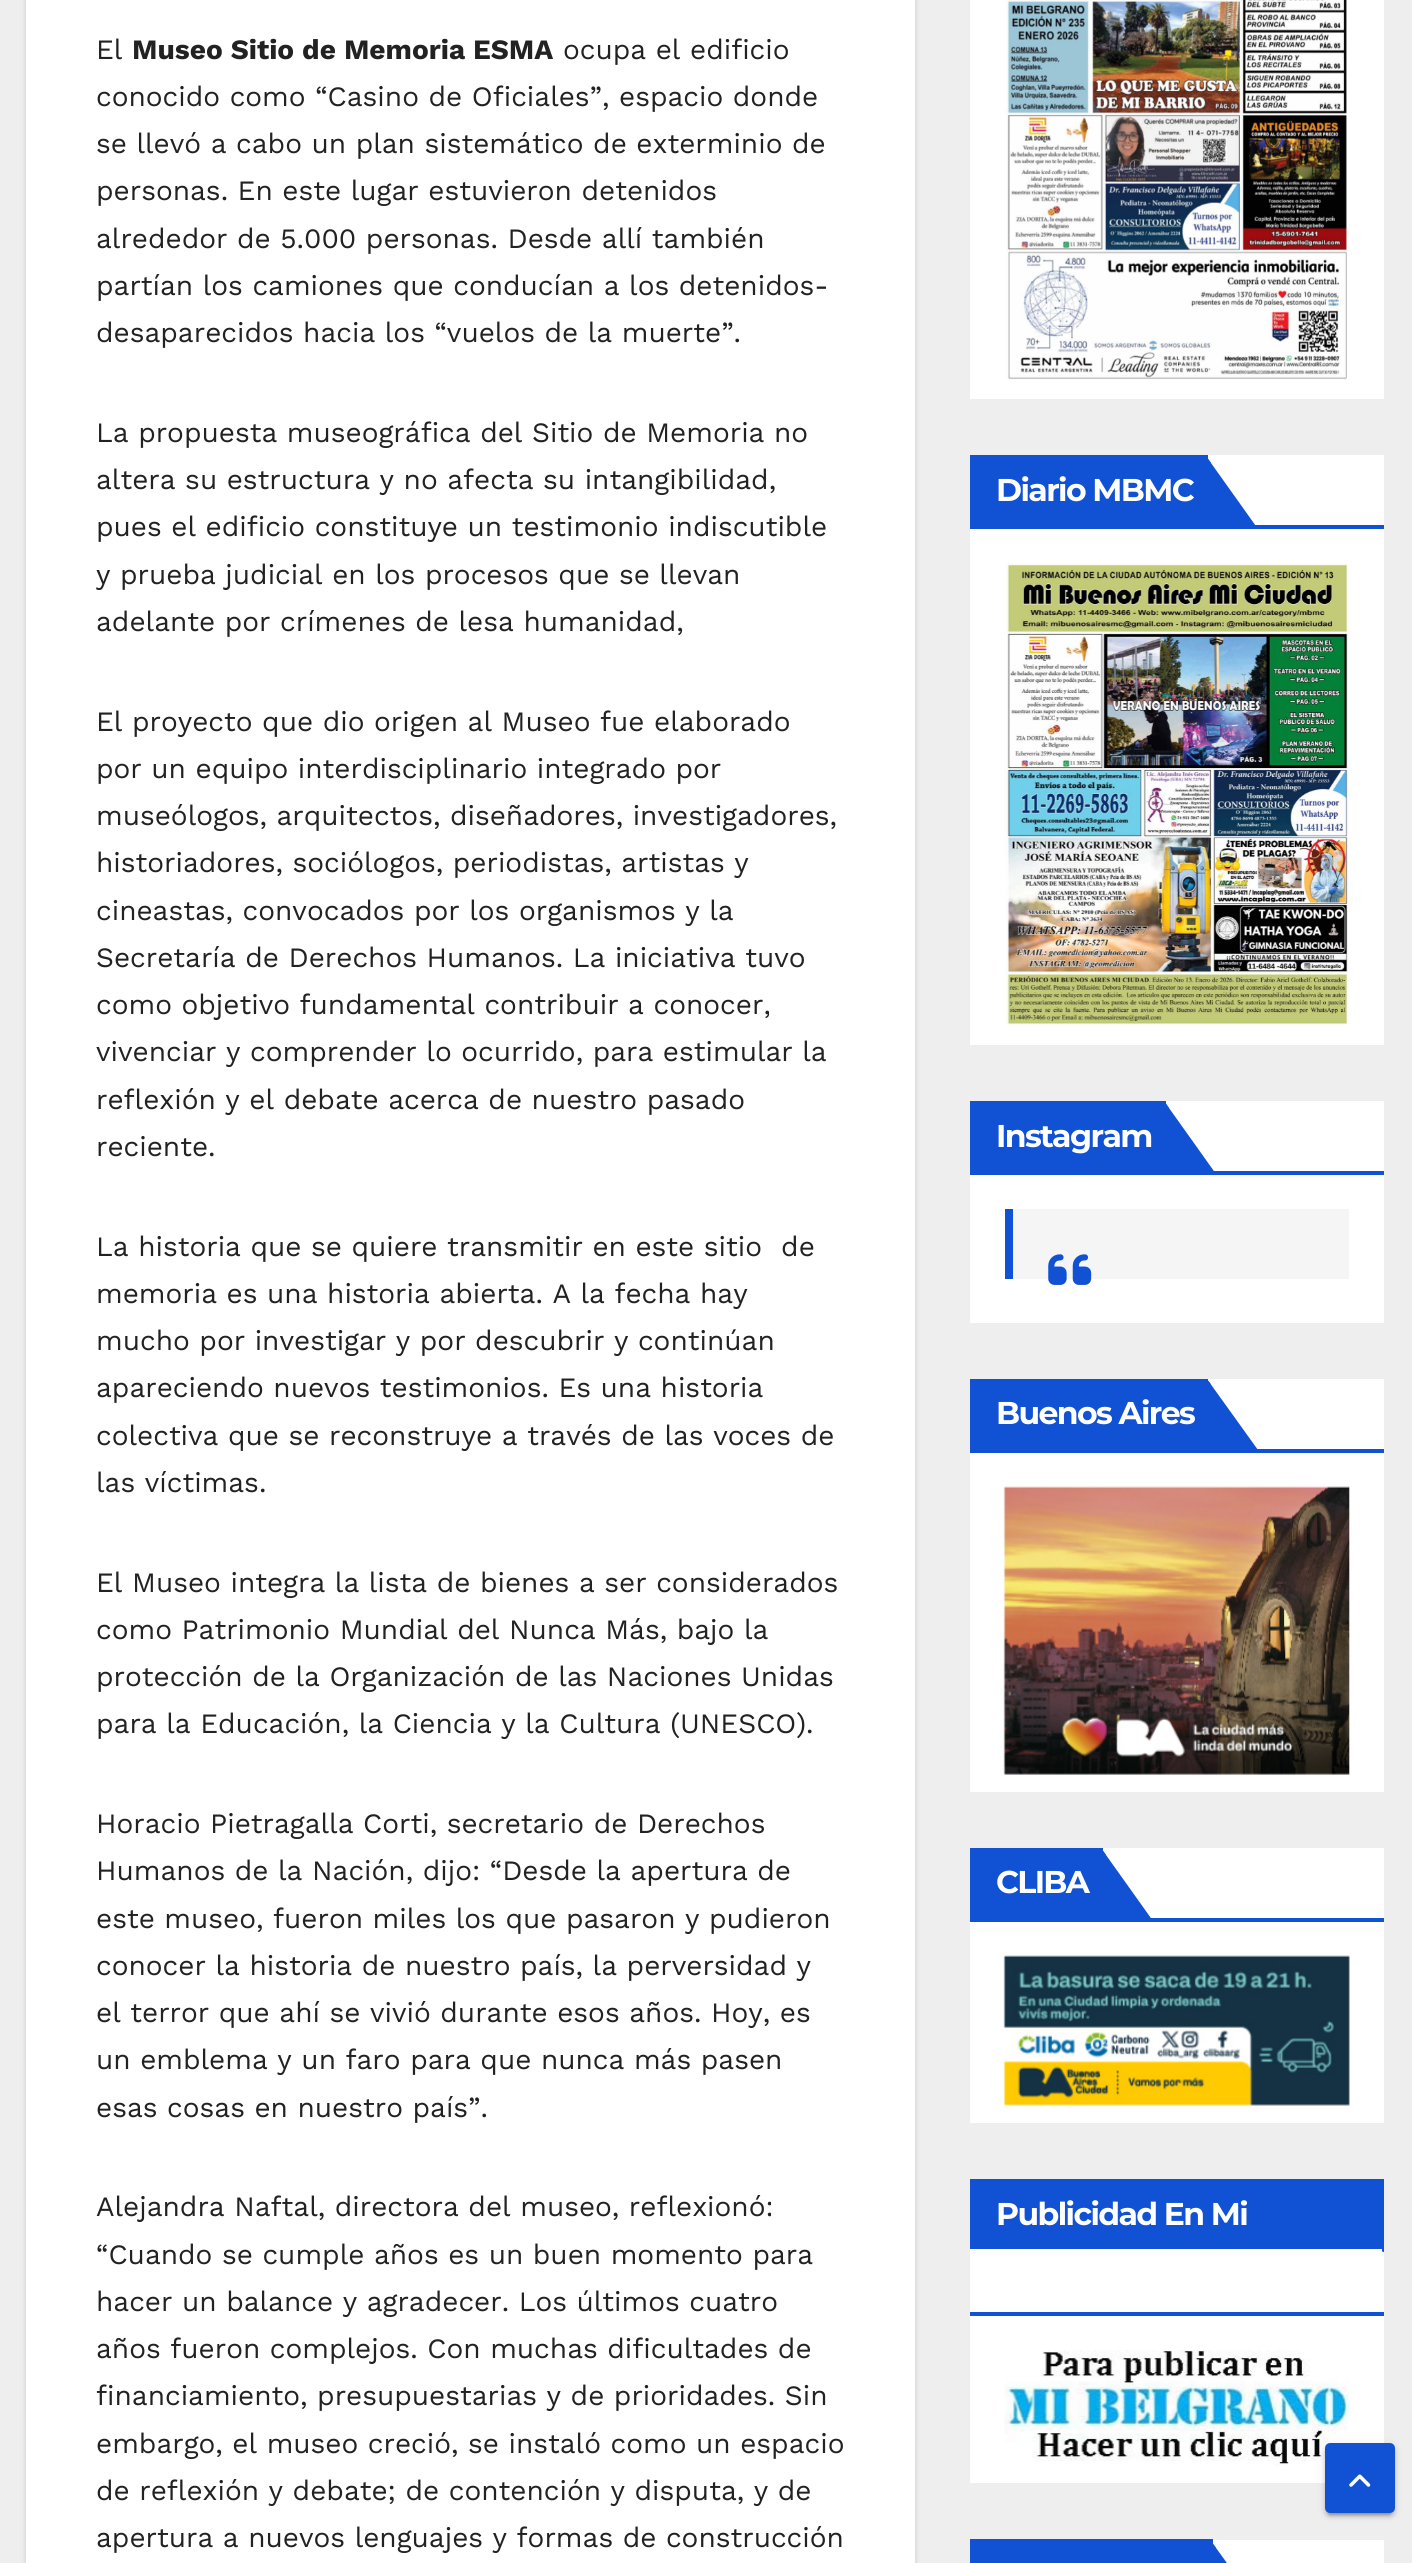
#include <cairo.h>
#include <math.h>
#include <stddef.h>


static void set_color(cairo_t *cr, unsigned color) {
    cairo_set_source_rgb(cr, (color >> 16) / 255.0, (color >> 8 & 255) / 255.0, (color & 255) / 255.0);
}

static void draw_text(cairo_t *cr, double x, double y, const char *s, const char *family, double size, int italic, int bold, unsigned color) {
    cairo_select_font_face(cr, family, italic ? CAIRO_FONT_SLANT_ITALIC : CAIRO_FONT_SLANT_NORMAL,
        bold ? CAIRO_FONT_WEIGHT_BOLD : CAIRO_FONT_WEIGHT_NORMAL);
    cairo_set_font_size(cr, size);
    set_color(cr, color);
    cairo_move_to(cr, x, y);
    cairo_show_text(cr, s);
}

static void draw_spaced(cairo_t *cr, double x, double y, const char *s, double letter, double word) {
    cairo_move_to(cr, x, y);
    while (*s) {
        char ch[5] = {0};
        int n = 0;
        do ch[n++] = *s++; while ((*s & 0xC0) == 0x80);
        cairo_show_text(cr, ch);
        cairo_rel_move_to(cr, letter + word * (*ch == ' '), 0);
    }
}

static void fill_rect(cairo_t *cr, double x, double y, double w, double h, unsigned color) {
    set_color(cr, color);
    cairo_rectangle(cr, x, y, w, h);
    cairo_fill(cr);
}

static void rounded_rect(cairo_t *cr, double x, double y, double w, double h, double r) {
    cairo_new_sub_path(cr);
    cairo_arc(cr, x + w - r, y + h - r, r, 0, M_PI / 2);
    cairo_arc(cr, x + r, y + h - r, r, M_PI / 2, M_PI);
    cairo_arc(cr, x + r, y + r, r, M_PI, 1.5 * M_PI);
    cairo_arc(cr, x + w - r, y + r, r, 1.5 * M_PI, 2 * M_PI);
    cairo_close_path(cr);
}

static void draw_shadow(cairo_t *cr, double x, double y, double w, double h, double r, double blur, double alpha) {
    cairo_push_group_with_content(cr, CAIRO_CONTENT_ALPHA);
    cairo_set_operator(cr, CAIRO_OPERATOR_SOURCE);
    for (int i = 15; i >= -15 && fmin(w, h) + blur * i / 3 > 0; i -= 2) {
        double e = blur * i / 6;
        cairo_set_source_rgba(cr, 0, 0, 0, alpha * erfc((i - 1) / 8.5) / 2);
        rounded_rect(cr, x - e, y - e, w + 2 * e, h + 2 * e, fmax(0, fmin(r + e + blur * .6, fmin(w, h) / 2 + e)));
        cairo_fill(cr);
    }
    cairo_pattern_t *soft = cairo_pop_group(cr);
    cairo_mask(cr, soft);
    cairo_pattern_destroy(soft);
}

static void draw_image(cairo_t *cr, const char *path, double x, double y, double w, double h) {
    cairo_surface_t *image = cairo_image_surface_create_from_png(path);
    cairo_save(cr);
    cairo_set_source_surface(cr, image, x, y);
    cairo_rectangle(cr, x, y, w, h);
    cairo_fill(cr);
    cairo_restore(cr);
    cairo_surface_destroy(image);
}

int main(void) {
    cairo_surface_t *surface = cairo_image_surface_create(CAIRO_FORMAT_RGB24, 1412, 2563);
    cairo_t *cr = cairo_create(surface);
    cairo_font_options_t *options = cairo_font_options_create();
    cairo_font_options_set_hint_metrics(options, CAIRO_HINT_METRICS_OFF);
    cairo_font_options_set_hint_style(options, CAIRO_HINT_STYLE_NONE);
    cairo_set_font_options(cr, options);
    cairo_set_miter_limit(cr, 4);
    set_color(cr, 0xEEEEEE);
    cairo_paint(cr);
    set_color(cr, 0x000000);
    draw_shadow(cr, 26, -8, 889, 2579, 0, 2.5, 0.15);
    fill_rect(cr, 26, 0, 889, 2563, 0xFFFFFF);
    draw_text(cr, 96, 59, "El", "Work Sans", 28, 0, 0, 0x222222);
    draw_text(cr, 132, 59, "Museo Sitio de Memoria ESMA", "Work Sans", 28, 0, 1, 0x222222);
    draw_text(cr, 563, 59, "ocupa el edificio", "Work Sans", 28, 0, 0, 0x222222);
    draw_text(cr, 96, 106, "conocido como “Casino de Oficiales”, espacio donde", "Work Sans", 28, 0, 0, 0x222222);
    draw_text(cr, 96, 153, "se llevó a cabo un plan sistemático de exterminio de", "Work Sans", 28, 0, 0, 0x222222);
    draw_text(cr, 96, 200, "personas. En este lugar estuvieron detenidos", "Work Sans", 28, 0, 0, 0x222222);
    draw_text(cr, 96, 248, "alrededor de 5.000 personas. Desde allí también", "Work Sans", 28, 0, 0, 0x222222);
    draw_text(cr, 96, 295, "partían los camiones que conducían a los detenidos-", "Work Sans", 28, 0, 0, 0x222222);
    draw_text(cr, 96, 342, "desaparecidos hacia los “vuelos de la muerte”.", "Work Sans", 28, 0, 0, 0x222222);
    draw_text(cr, 96, 442, "La propuesta museográfica del Sitio de Memoria no", "Work Sans", 28, 0, 0, 0x222222);
    draw_text(cr, 96, 489, "altera su estructura y no afecta su intangibilidad,", "Work Sans", 28, 0, 0, 0x222222);
    draw_text(cr, 96, 536, "pues el edificio constituye un testimonio indiscutible", "Work Sans", 28, 0, 0, 0x222222);
    draw_text(cr, 96, 584, "y prueba judicial en los procesos que se llevan", "Work Sans", 28, 0, 0, 0x222222);
    draw_text(cr, 96, 631, "adelante por crímenes de lesa humanidad,", "Work Sans", 28, 0, 0, 0x222222);
    draw_text(cr, 96, 731, "El proyecto que dio origen al Museo fue elaborado", "Work Sans", 28, 0, 0, 0x222222);
    draw_text(cr, 96, 778, "por un equipo interdisciplinario integrado por", "Work Sans", 28, 0, 0, 0x222222);
    draw_text(cr, 96, 825, "museólogos, arquitectos, diseñadores, investigadores,", "Work Sans", 28, 0, 0, 0x222222);
    draw_text(cr, 96, 872, "historiadores, sociólogos, periodistas, artistas y", "Work Sans", 28, 0, 0, 0x222222);
    draw_text(cr, 96, 920, "cineastas, convocados por los organismos y la", "Work Sans", 28, 0, 0, 0x222222);
    draw_text(cr, 96, 967, "Secretaría de Derechos Humanos. La iniciativa tuvo", "Work Sans", 28, 0, 0, 0x222222);
    draw_text(cr, 96, 1014, "como objetivo fundamental contribuir a conocer,", "Work Sans", 28, 0, 0, 0x222222);
    draw_text(cr, 96, 1061, "vivenciar y comprender lo ocurrido, para estimular la", "Work Sans", 28, 0, 0, 0x222222);
    draw_text(cr, 96, 1109, "reflexión y el debate acerca de nuestro pasado", "Work Sans", 28, 0, 0, 0x222222);
    draw_text(cr, 96, 1156, "reciente.", "Work Sans", 28, 0, 0, 0x222222);
    draw_text(cr, 96, 1256, "La historia que se quiere transmitir en este sitio  de", "Work Sans", 28, 0, 0, 0x222222);
    draw_text(cr, 96, 1303, "memoria es una historia abierta. A la fecha hay", "Work Sans", 28, 0, 0, 0x222222);
    draw_text(cr, 96, 1350, "mucho por investigar y por descubrir y continúan", "Work Sans", 28, 0, 0, 0x222222);
    draw_text(cr, 96, 1397, "apareciendo nuevos testimonios. Es una historia", "Work Sans", 28, 0, 0, 0x222222);
    draw_text(cr, 96, 1445, "colectiva que se reconstruye a través de las voces de", "Work Sans", 28, 0, 0, 0x222222);
    draw_text(cr, 96, 1492, "las víctimas.", "Work Sans", 28, 0, 0, 0x222222);
    draw_text(cr, 96, 1592, "El Museo integra la lista de bienes a ser considerados", "Work Sans", 28, 0, 0, 0x222222);
    draw_text(cr, 96, 1639, "como Patrimonio Mundial del Nunca Más, bajo la", "Work Sans", 28, 0, 0, 0x222222);
    draw_text(cr, 96, 1686, "protección de la Organización de las Naciones Unidas", "Work Sans", 28, 0, 0, 0x222222);
    draw_text(cr, 96, 1733, "para la Educación, la Ciencia y la Cultura (UNESCO).", "Work Sans", 28, 0, 0, 0x222222);
    draw_text(cr, 96, 1833, "Horacio Pietragalla Corti, secretario de Derechos", "Work Sans", 28, 0, 0, 0x222222);
    draw_text(cr, 96, 1880, "Humanos de la Nación, dijo: “Desde la apertura de", "Work Sans", 28, 0, 0, 0x222222);
    draw_text(cr, 96, 1928, "este museo, fueron miles los que pasaron y pudieron", "Work Sans", 28, 0, 0, 0x222222);
    draw_text(cr, 96, 1975, "conocer la historia de nuestro país, la perversidad y", "Work Sans", 28, 0, 0, 0x222222);
    draw_text(cr, 96, 2022, "el terror que ahí se vivió durante esos años. Hoy, es", "Work Sans", 28, 0, 0, 0x222222);
    draw_text(cr, 96, 2069, "un emblema y un faro para que nunca más pasen", "Work Sans", 28, 0, 0, 0x222222);
    draw_text(cr, 96, 2117, "esas cosas en nuestro país”.", "Work Sans", 28, 0, 0, 0x222222);
    draw_text(cr, 96, 2216, "Alejandra Naftal, directora del museo, reflexionó:", "Work Sans", 28, 0, 0, 0x222222);
    draw_text(cr, 96, 2264, "“Cuando se cumple años es un buen momento para", "Work Sans", 28, 0, 0, 0x222222);
    draw_text(cr, 96, 2311, "hacer un balance y agradecer. Los últimos cuatro", "Work Sans", 28, 0, 0, 0x222222);
    draw_text(cr, 96, 2358, "años fueron complejos. Con muchas dificultades de", "Work Sans", 28, 0, 0, 0x222222);
    draw_text(cr, 96, 2405, "financiamiento, presupuestarias y de prioridades. Sin", "Work Sans", 28, 0, 0, 0x222222);
    draw_text(cr, 96, 2453, "embargo, el museo creció, se instaló como un espacio", "Work Sans", 28, 0, 0, 0x222222);
    draw_text(cr, 96, 2500, "de reflexión y debate; de contención y disputa, y de", "Work Sans", 28, 0, 0, 0x222222);
    draw_text(cr, 96, 2547, "apertura a nuevos lenguajes y formas de construcción", "Work Sans", 28, 0, 0, 0x222222);
    fill_rect(cr, 970, 0, 414, 399, 0xFFFFFF);
    draw_image(cr, "assets/img1.png", 1004, 0, 343, 380);
    fill_rect(cr, 970, 455, 414, 590, 0xFFFFFF);
    fill_rect(cr, 970, 525, 414, 4, 0x1151D3);
    fill_rect(cr, 970, 455, 238, 70, 0x1151D3);
    cairo_select_font_face(cr, "Montserrat", CAIRO_FONT_SLANT_NORMAL, CAIRO_FONT_WEIGHT_BOLD);
    cairo_set_font_size(cr, 31.5);
    set_color(cr, 0xFFFFFF);
    draw_spaced(cr, 996, 501, "Diario MBMC", -1.6, 0);
    set_color(cr, 0x1151D3);
    cairo_new_path(cr);
    cairo_move_to(cr, 1206, 529);
    cairo_line_to(cr, 1206, 456);
    cairo_line_to(cr, 1258, 529);
    cairo_close_path(cr);
    cairo_fill(cr);
    cairo_new_path(cr);
    cairo_move_to(cr, 1206, 528);
    cairo_line_to(cr, 1211, 523);
    cairo_line_to(cr, 1211, 463);
    cairo_line_to(cr, 1206, 456);
    cairo_close_path(cr);
    cairo_fill(cr);
    draw_image(cr, "assets/img2.png", 1004, 563, 345, 462);
    fill_rect(cr, 970, 1101, 414, 222, 0xFFFFFF);
    fill_rect(cr, 970, 1171, 414, 4, 0x1151D3);
    fill_rect(cr, 970, 1101, 196, 70, 0x1151D3);
    set_color(cr, 0xFFFFFF);
    draw_spaced(cr, 996, 1147, "Instagram", -1.6, 0);
    set_color(cr, 0x1151D3);
    cairo_new_path(cr);
    cairo_move_to(cr, 1216, 1174);
    cairo_line_to(cr, 1164, 1174);
    cairo_line_to(cr, 1164, 1101);
    cairo_close_path(cr);
    cairo_fill(cr);
    cairo_new_path(cr);
    cairo_move_to(cr, 1164, 1174);
    cairo_line_to(cr, 1169, 1169);
    cairo_line_to(cr, 1169, 1108);
    cairo_line_to(cr, 1164, 1101);
    cairo_close_path(cr);
    cairo_fill(cr);
    fill_rect(cr, 1013, 1209, 336, 70, 0xF5F5F5);
    fill_rect(cr, 1005, 1209, 8, 70, 0x1151D3);
    draw_image(cr, "assets/img3.png", 1048, 1254, 44, 31);
    fill_rect(cr, 970, 1379, 414, 413, 0xFFFFFF);
    fill_rect(cr, 970, 1449, 414, 4, 0x1151D3);
    fill_rect(cr, 970, 1379, 238, 70, 0x1151D3);
    set_color(cr, 0xFFFFFF);
    draw_spaced(cr, 996, 1424, "Buenos Aires", -1.6, 0);
    set_color(cr, 0x1151D3);
    cairo_new_path(cr);
    cairo_move_to(cr, 1207, 1379);
    cairo_line_to(cr, 1207, 1452);
    cairo_line_to(cr, 1258, 1452);
    cairo_line_to(cr, 1258, 1450);
    cairo_close_path(cr);
    cairo_fill(cr);
    cairo_new_path(cr);
    cairo_move_to(cr, 1210, 1383);
    cairo_line_to(cr, 1207, 1380);
    cairo_line_to(cr, 1207, 1451);
    cairo_line_to(cr, 1211, 1447);
    cairo_line_to(cr, 1211, 1385);
    cairo_close_path(cr);
    cairo_fill(cr);
    draw_image(cr, "assets/img4.png", 1003, 1486, 347, 289);
    fill_rect(cr, 970, 1848, 414, 275, 0xFFFFFF);
    fill_rect(cr, 970, 1918, 414, 4, 0x1151D3);
    fill_rect(cr, 970, 1848, 133, 70, 0x1151D3);
    set_color(cr, 0xFFFFFF);
    draw_spaced(cr, 996, 1893, "CLIBA", -1.6, 0);
    set_color(cr, 0x1151D3);
    cairo_new_path(cr);
    cairo_move_to(cr, 1101, 1848);
    cairo_line_to(cr, 1101, 1921);
    cairo_line_to(cr, 1153, 1921);
    cairo_close_path(cr);
    cairo_fill(cr);
    cairo_new_path(cr);
    cairo_move_to(cr, 1101, 1848);
    cairo_line_to(cr, 1101, 1921);
    cairo_line_to(cr, 1102, 1921);
    cairo_line_to(cr, 1106, 1916);
    cairo_line_to(cr, 1106, 1855);
    cairo_close_path(cr);
    cairo_fill(cr);
    draw_image(cr, "assets/img5.png", 1003, 1955, 347, 151);
    fill_rect(cr, 970, 2249, 414, 234, 0xFFFFFF);
    fill_rect(cr, 970, 2312, 414, 4, 0x1151D3);
    fill_rect(cr, 970, 2179, 414, 70, 0x1151D3);
    set_color(cr, 0xFFFFFF);
    draw_spaced(cr, 996, 2225, "Publicidad En Mi", -1.6, 0);
    cairo_save(cr);
    cairo_rectangle(cr, 970, 2179, 414, 304);
    cairo_clip(cr);
    set_color(cr, 0x1151D3);
    cairo_new_path(cr);
    cairo_move_to(cr, 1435, 2252);
    cairo_line_to(cr, 1383, 2252);
    cairo_line_to(cr, 1383, 2180);
    cairo_close_path(cr);
    cairo_fill(cr);
    cairo_new_path(cr);
    cairo_move_to(cr, 1388, 2187);
    cairo_line_to(cr, 1388, 2247);
    cairo_line_to(cr, 1382, 2252);
    cairo_line_to(cr, 1382, 2179);
    cairo_close_path(cr);
    cairo_fill(cr);
    cairo_restore(cr);
    draw_image(cr, "assets/img6.png", 1004, 2350, 346, 116);
    fill_rect(cr, 1213, 2540, 171, 23, 0xFFFFFF);
    fill_rect(cr, 970, 2539, 243, 24, 0x1151D3);
    cairo_new_path(cr);
    cairo_move_to(cr, 1263, 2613);
    cairo_line_to(cr, 1211, 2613);
    cairo_line_to(cr, 1211, 2541);
    cairo_close_path(cr);
    cairo_fill(cr);
    cairo_new_path(cr);
    cairo_move_to(cr, 1211, 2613);
    cairo_line_to(cr, 1216, 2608);
    cairo_line_to(cr, 1216, 2548);
    cairo_line_to(cr, 1211, 2541);
    cairo_close_path(cr);
    cairo_fill(cr);
    set_color(cr, 0x000000);
    draw_shadow(cr, 1325, 2445, 70, 70, 5, 4.5, 0.12);
    draw_shadow(cr, 1328, 2452, 63, 63, 2, 1, 0.2);
    draw_shadow(cr, 1325, 2447, 70, 70, 5, 2, 0.14);
    set_color(cr, 0x1151D3);
    rounded_rect(cr, 1327, 2445, 66, 66, 3);
    cairo_fill_preserve(cr);
    cairo_set_line_width(cr, 4);
    cairo_stroke(cr);
    draw_image(cr, "assets/img7.png", 1349, 2474, 22, 13);
    cairo_surface_write_to_png(surface, "output.png");
    cairo_font_options_destroy(options);
    cairo_destroy(cr);
    cairo_surface_destroy(surface);
    return 0;
}
